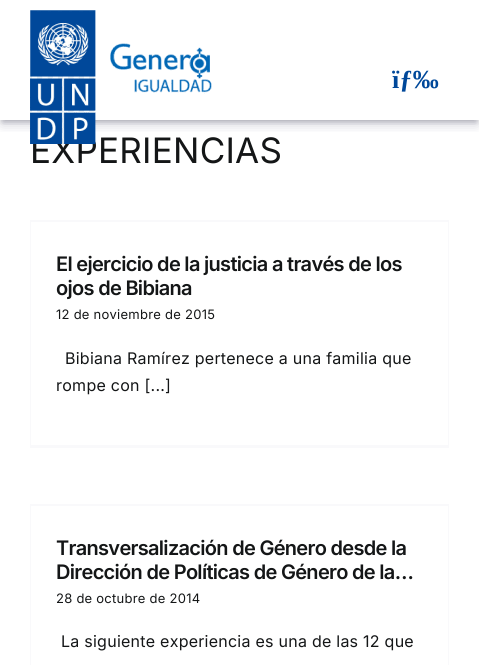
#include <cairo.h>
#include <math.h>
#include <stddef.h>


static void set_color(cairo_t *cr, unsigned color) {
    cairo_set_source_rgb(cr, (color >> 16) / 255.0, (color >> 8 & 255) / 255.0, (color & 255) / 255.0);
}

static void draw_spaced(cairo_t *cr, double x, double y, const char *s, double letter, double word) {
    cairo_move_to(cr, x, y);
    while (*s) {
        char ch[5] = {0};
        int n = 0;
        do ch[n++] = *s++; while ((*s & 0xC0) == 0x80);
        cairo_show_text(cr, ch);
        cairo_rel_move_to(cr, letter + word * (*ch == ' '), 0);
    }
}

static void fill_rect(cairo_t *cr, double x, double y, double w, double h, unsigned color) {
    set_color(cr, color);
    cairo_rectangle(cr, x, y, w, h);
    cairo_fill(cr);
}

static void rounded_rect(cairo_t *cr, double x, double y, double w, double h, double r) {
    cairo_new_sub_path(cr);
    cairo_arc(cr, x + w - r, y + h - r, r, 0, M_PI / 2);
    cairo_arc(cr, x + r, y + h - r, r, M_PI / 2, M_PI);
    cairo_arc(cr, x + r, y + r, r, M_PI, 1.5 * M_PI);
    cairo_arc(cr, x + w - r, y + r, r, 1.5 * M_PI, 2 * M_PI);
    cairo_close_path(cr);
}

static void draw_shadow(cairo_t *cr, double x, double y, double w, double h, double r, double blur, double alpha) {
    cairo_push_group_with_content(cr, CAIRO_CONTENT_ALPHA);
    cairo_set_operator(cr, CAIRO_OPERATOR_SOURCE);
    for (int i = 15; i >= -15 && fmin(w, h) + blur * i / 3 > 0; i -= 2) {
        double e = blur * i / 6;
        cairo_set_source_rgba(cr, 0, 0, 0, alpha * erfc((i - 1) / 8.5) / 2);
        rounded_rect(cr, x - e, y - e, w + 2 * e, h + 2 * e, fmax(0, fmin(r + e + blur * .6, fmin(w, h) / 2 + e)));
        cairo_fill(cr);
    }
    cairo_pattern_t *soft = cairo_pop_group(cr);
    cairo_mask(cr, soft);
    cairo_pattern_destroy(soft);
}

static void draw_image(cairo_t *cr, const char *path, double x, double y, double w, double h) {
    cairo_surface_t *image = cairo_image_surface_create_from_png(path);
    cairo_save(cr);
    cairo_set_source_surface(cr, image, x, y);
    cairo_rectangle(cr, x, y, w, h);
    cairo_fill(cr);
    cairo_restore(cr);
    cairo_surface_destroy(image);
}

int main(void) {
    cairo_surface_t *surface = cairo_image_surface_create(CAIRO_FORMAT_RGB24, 479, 665);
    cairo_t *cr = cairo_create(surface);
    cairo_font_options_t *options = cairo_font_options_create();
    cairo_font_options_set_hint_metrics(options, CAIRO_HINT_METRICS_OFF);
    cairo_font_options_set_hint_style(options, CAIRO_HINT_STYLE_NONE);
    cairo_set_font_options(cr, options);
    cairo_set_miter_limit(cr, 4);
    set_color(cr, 0xFFFFFF);
    cairo_paint(cr);
    cairo_save(cr);
    cairo_rectangle(cr, 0, 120, 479, 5);
    cairo_clip(cr);
    set_color(cr, 0x000000);
    draw_shadow(cr, 3, 6, 473, 114, 0, 3.5, 0.3);
    cairo_restore(cr);
    cairo_save(cr);
    cairo_rectangle(cr, 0, 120, 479, 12);
    cairo_clip(cr);
    set_color(cr, 0x32325D);
    draw_shadow(cr, 2, 8, 475, 116, 0, 6, 0.25);
    cairo_restore(cr);
    cairo_select_font_face(cr, "Inter", CAIRO_FONT_SLANT_NORMAL, CAIRO_FONT_WEIGHT_NORMAL);
    cairo_set_font_size(cr, 35);
    set_color(cr, 0x141617);
    draw_spaced(cr, 30, 163, "EXPERIENCIAS", 0.25, 0);
    draw_image(cr, "assets/img1.png", 30, 10, 182, 134);
    cairo_select_font_face(cr, "Liberation Serif", CAIRO_FONT_SLANT_NORMAL, CAIRO_FONT_WEIGHT_BOLD);
    cairo_set_font_size(cr, 26);
    set_color(cr, 0x00489A);
    draw_spaced(cr, 392, 88, "ïƒ‰", 0.25, 0);
    fill_rect(cr, 30, 220, 419, 1, 0xF9F9FB);
    fill_rect(cr, 448, 220, 1, 228, 0xF9F9FB);
    fill_rect(cr, 30, 445, 419, 3, 0xF9F9FB);
    fill_rect(cr, 30, 220, 1, 228, 0xF9F9FB);
    fill_rect(cr, 31, 221, 417, 1, 0xF9F9FB);
    cairo_select_font_face(cr, "Inter SemiBold", CAIRO_FONT_SLANT_NORMAL, CAIRO_FONT_WEIGHT_NORMAL);
    cairo_set_font_size(cr, 20);
    set_color(cr, 0x141617);
    draw_spaced(cr, 56, 271, "El ejercicio de la justicia a través de los", -0.7, 0);
    draw_spaced(cr, 56, 295, "ojos de Bibiana", -0.7, 0);
    cairo_select_font_face(cr, "Inter", CAIRO_FONT_SLANT_NORMAL, CAIRO_FONT_WEIGHT_NORMAL);
    cairo_set_font_size(cr, 13);
    draw_spaced(cr, 56, 319, "12 de noviembre de 2015", 0.25, 0);
    cairo_set_font_size(cr, 16);
    draw_spaced(cr, 65, 364, "Bibiana Ramírez pertenece a una familia que", 0.25, 0);
    draw_spaced(cr, 56, 391, "rompe con [...]", 0.25, 0);
    fill_rect(cr, 30, 504, 419, 1, 0xF9F9FB);
    fill_rect(cr, 448, 504, 1, 161, 0xF9F9FB);
    fill_rect(cr, 30, 504, 1, 161, 0xF9F9FB);
    fill_rect(cr, 31, 505, 417, 1, 0xF9F9FB);
    cairo_select_font_face(cr, "Inter SemiBold", CAIRO_FONT_SLANT_NORMAL, CAIRO_FONT_WEIGHT_NORMAL);
    cairo_set_font_size(cr, 20);
    set_color(cr, 0x141617);
    draw_spaced(cr, 56, 555, "Transversalización de Género desde la", -0.7, 0);
    draw_spaced(cr, 56, 579, "Dirección de Políticas de Género de la…", -0.7, 0);
    cairo_select_font_face(cr, "Inter", CAIRO_FONT_SLANT_NORMAL, CAIRO_FONT_WEIGHT_NORMAL);
    cairo_set_font_size(cr, 13);
    draw_spaced(cr, 56, 603, "28 de octubre de 2014", 0.25, 0);
    cairo_set_font_size(cr, 16);
    draw_spaced(cr, 61, 647, "La siguiente experiencia es una de las 12 que", 0.25, 0);
    cairo_surface_write_to_png(surface, "output.png");
    cairo_font_options_destroy(options);
    cairo_destroy(cr);
    cairo_surface_destroy(surface);
    return 0;
}
